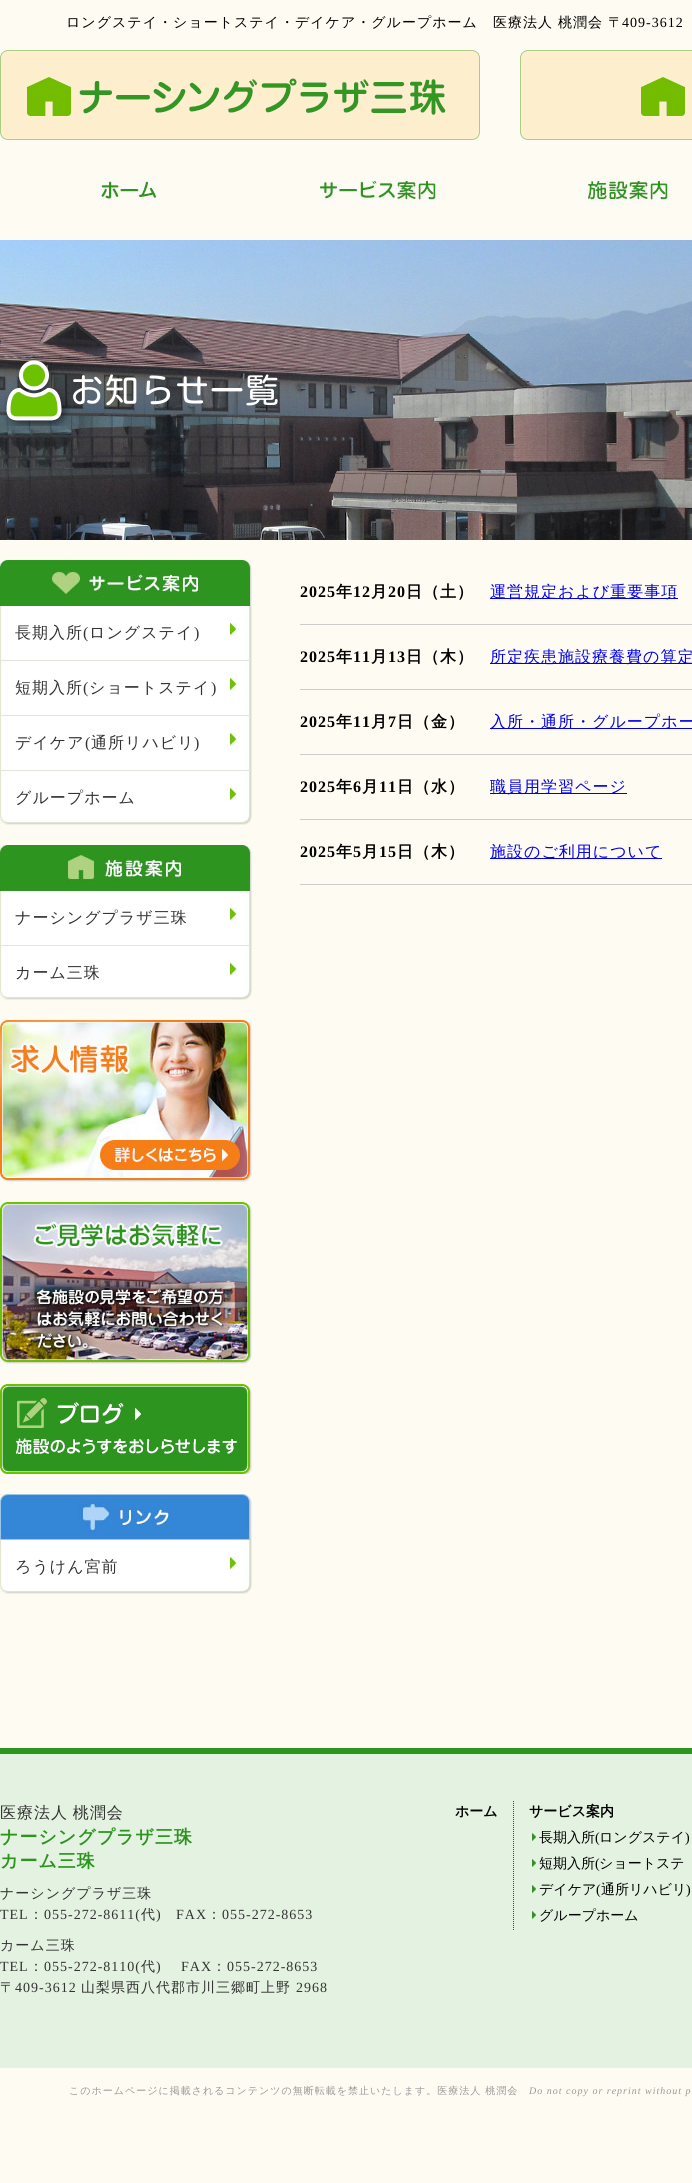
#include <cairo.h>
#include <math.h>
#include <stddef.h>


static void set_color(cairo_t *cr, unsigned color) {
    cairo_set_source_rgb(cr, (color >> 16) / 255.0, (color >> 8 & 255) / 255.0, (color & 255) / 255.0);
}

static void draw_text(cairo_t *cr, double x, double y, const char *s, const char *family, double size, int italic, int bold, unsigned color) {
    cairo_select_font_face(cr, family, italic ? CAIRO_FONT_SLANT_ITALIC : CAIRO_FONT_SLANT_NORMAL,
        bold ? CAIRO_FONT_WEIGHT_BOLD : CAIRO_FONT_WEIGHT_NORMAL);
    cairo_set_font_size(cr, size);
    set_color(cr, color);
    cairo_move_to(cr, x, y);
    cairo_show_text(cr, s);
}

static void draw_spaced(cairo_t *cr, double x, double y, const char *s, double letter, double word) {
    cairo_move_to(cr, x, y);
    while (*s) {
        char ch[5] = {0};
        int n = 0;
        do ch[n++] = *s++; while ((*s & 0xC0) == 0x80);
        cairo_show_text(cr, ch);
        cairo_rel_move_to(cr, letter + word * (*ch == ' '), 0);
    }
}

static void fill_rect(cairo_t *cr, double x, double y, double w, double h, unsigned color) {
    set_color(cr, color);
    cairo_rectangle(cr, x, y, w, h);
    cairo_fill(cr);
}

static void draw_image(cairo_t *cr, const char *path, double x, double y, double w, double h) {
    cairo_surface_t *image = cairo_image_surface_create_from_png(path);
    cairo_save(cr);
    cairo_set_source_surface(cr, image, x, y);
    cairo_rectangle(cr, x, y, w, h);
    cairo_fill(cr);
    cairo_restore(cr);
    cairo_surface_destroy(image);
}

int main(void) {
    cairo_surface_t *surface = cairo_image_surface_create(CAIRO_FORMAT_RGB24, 692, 2183);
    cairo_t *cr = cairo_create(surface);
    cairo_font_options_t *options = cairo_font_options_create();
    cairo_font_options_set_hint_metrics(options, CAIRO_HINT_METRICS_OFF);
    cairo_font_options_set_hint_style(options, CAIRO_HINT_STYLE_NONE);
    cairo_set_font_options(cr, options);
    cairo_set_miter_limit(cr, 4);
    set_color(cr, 0xFEFBF2);
    cairo_paint(cr);
    draw_image(cr, "assets/img1.png", 0, 240, 692, 300);
    draw_image(cr, "assets/img2.png", 0, 1745, 692, 323);
    cairo_select_font_face(cr, "WenQuanYi Zen Hei Medium", CAIRO_FONT_SLANT_NORMAL, CAIRO_FONT_WEIGHT_NORMAL);
    cairo_set_font_size(cr, 14);
    set_color(cr, 0x000000);
    draw_spaced(cr, 66, 27, "ロングステイ・ショートステイ・デイケア・グループホーム　医療法人 桃潤会 〒", 1, 0);
    cairo_select_font_face(cr, "Liberation Serif", CAIRO_FONT_SLANT_NORMAL, CAIRO_FONT_WEIGHT_NORMAL);
    draw_spaced(cr, 622, 27, "409-3612", 1, 0);
    draw_image(cr, "assets/img3.png", 0, 50, 480, 90);
    draw_image(cr, "assets/img4.png", 520, 50, 172, 90);
    draw_image(cr, "assets/img5.png", 96, 181, 64, 24);
    draw_image(cr, "assets/img6.png", 320, 181, 120, 24);
    draw_image(cr, "assets/img7.png", 584, 181, 88, 24);
    draw_image(cr, "assets/img8.png", 4, 358, 67, 68);
    cairo_select_font_face(cr, "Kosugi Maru", CAIRO_FONT_SLANT_NORMAL, CAIRO_FONT_WEIGHT_NORMAL);
    cairo_set_font_size(cr, 34);
    set_color(cr, 0xFFFFFF);
    draw_spaced(cr, 70, 403, "お知らせ一覧", 1, 0);
    draw_image(cr, "assets/img9.png", 0, 606, 252, 208);
    draw_image(cr, "assets/img10.png", 0, 560, 252, 46);
    draw_image(cr, "assets/img11.png", 0, 814, 252, 11);
    draw_image(cr, "assets/img12.png", 230, 623, 7, 12);
    fill_rect(cr, 0, 660, 252, 1, 0xE3E4DC);
    cairo_select_font_face(cr, "WenQuanYi Zen Hei Medium", CAIRO_FONT_SLANT_NORMAL, CAIRO_FONT_WEIGHT_NORMAL);
    cairo_set_font_size(cr, 16);
    set_color(cr, 0x333333);
    draw_spaced(cr, 15, 638, "長期入所", 1, 0);
    cairo_select_font_face(cr, "Liberation Serif", CAIRO_FONT_SLANT_NORMAL, CAIRO_FONT_WEIGHT_NORMAL);
    draw_spaced(cr, 83, 638, "(", 1, 0);
    cairo_select_font_face(cr, "WenQuanYi Zen Hei Medium", CAIRO_FONT_SLANT_NORMAL, CAIRO_FONT_WEIGHT_NORMAL);
    draw_spaced(cr, 89, 638, "ロングステイ", 1, 0);
    cairo_select_font_face(cr, "Liberation Serif", CAIRO_FONT_SLANT_NORMAL, CAIRO_FONT_WEIGHT_NORMAL);
    draw_spaced(cr, 194, 638, ")", 1, 0);
    draw_image(cr, "assets/img12.png", 230, 678, 7, 12);
    fill_rect(cr, 0, 715, 252, 1, 0xE3E4DC);
    cairo_select_font_face(cr, "WenQuanYi Zen Hei Medium", CAIRO_FONT_SLANT_NORMAL, CAIRO_FONT_WEIGHT_NORMAL);
    set_color(cr, 0x333333);
    draw_spaced(cr, 15, 693, "短期入所", 1, 0);
    cairo_select_font_face(cr, "Liberation Serif", CAIRO_FONT_SLANT_NORMAL, CAIRO_FONT_WEIGHT_NORMAL);
    draw_spaced(cr, 83, 693, "(", 1, 0);
    cairo_select_font_face(cr, "WenQuanYi Zen Hei Medium", CAIRO_FONT_SLANT_NORMAL, CAIRO_FONT_WEIGHT_NORMAL);
    draw_spaced(cr, 89, 693, "ショートステイ", 1, 0);
    cairo_select_font_face(cr, "Liberation Serif", CAIRO_FONT_SLANT_NORMAL, CAIRO_FONT_WEIGHT_NORMAL);
    draw_spaced(cr, 211, 693, ")", 1, 0);
    draw_image(cr, "assets/img12.png", 230, 733, 7, 12);
    fill_rect(cr, 0, 770, 252, 1, 0xE3E4DC);
    cairo_select_font_face(cr, "WenQuanYi Zen Hei Medium", CAIRO_FONT_SLANT_NORMAL, CAIRO_FONT_WEIGHT_NORMAL);
    set_color(cr, 0x333333);
    draw_spaced(cr, 15, 748, "デイケア", 1, 0);
    cairo_select_font_face(cr, "Liberation Serif", CAIRO_FONT_SLANT_NORMAL, CAIRO_FONT_WEIGHT_NORMAL);
    draw_spaced(cr, 85, 748, "(", 1, 0);
    cairo_select_font_face(cr, "WenQuanYi Zen Hei Medium", CAIRO_FONT_SLANT_NORMAL, CAIRO_FONT_WEIGHT_NORMAL);
    draw_spaced(cr, 91, 748, "通所リハビリ", 1, 0);
    cairo_select_font_face(cr, "Liberation Serif", CAIRO_FONT_SLANT_NORMAL, CAIRO_FONT_WEIGHT_NORMAL);
    draw_spaced(cr, 194, 748, ")", 1, 0);
    draw_image(cr, "assets/img12.png", 230, 788, 7, 12);
    cairo_select_font_face(cr, "WenQuanYi Zen Hei Medium", CAIRO_FONT_SLANT_NORMAL, CAIRO_FONT_WEIGHT_NORMAL);
    draw_spaced(cr, 15, 803, "グループホーム", 1, 0);
    draw_image(cr, "assets/img13.png", 0, 891, 252, 98);
    draw_image(cr, "assets/img14.png", 0, 845, 252, 46);
    draw_image(cr, "assets/img11.png", 0, 989, 252, 11);
    draw_image(cr, "assets/img12.png", 230, 908, 7, 12);
    fill_rect(cr, 0, 945, 252, 1, 0xE3E4DC);
    set_color(cr, 0x333333);
    draw_spaced(cr, 15, 923, "ナーシングプラザ三珠", 1, 0);
    draw_image(cr, "assets/img12.png", 230, 963, 7, 12);
    draw_spaced(cr, 15, 978, "カーム三珠", 1, 0);
    draw_image(cr, "assets/img15.png", 0, 1020, 252, 162);
    draw_image(cr, "assets/img16.png", 0, 1202, 252, 162);
    draw_image(cr, "assets/img17.png", 0, 1384, 252, 90);
    draw_image(cr, "assets/img18.png", 0, 1540, 252, 43);
    draw_image(cr, "assets/img19.png", 0, 1494, 252, 46);
    draw_image(cr, "assets/img11.png", 0, 1583, 252, 11);
    draw_image(cr, "assets/img12.png", 230, 1557, 7, 12);
    draw_spaced(cr, 15, 1572, "ろうけん宮前", 1, 0);
    cairo_select_font_face(cr, "Liberation Serif", CAIRO_FONT_SLANT_NORMAL, CAIRO_FONT_WEIGHT_BOLD);
    set_color(cr, 0x000000);
    draw_spaced(cr, 300, 597, "2025", 1, 0);
    cairo_select_font_face(cr, "WenQuanYi Zen Hei", CAIRO_FONT_SLANT_NORMAL, CAIRO_FONT_WEIGHT_BOLD);
    draw_spaced(cr, 336, 597, "年", 1, 0);
    cairo_select_font_face(cr, "Liberation Serif", CAIRO_FONT_SLANT_NORMAL, CAIRO_FONT_WEIGHT_BOLD);
    draw_spaced(cr, 353, 597, "12", 1, 0);
    cairo_select_font_face(cr, "WenQuanYi Zen Hei", CAIRO_FONT_SLANT_NORMAL, CAIRO_FONT_WEIGHT_BOLD);
    draw_spaced(cr, 371, 597, "月", 1, 0);
    cairo_select_font_face(cr, "Liberation Serif", CAIRO_FONT_SLANT_NORMAL, CAIRO_FONT_WEIGHT_BOLD);
    draw_spaced(cr, 388, 597, "20", 1, 0);
    cairo_select_font_face(cr, "WenQuanYi Zen Hei", CAIRO_FONT_SLANT_NORMAL, CAIRO_FONT_WEIGHT_BOLD);
    draw_spaced(cr, 406, 597, "日（土）", 1, 0);
    fill_rect(cr, 300, 624, 392, 1, 0xCCCCCC);
    fill_rect(cr, 490, 598, 188, 1, 0x0000EE);
    cairo_select_font_face(cr, "WenQuanYi Zen Hei Medium", CAIRO_FONT_SLANT_NORMAL, CAIRO_FONT_WEIGHT_NORMAL);
    draw_spaced(cr, 490, 597, "運営規定および重要事項", 1, 0);
    cairo_select_font_face(cr, "Liberation Serif", CAIRO_FONT_SLANT_NORMAL, CAIRO_FONT_WEIGHT_BOLD);
    set_color(cr, 0x000000);
    draw_spaced(cr, 300, 662, "2025", 1, 0);
    cairo_select_font_face(cr, "WenQuanYi Zen Hei", CAIRO_FONT_SLANT_NORMAL, CAIRO_FONT_WEIGHT_BOLD);
    draw_spaced(cr, 336, 662, "年", 1, 0);
    cairo_select_font_face(cr, "Liberation Serif", CAIRO_FONT_SLANT_NORMAL, CAIRO_FONT_WEIGHT_BOLD);
    draw_spaced(cr, 353, 662, "11", 1, 0);
    cairo_select_font_face(cr, "WenQuanYi Zen Hei", CAIRO_FONT_SLANT_NORMAL, CAIRO_FONT_WEIGHT_BOLD);
    draw_spaced(cr, 371, 662, "月", 1, 0);
    cairo_select_font_face(cr, "Liberation Serif", CAIRO_FONT_SLANT_NORMAL, CAIRO_FONT_WEIGHT_BOLD);
    draw_spaced(cr, 388, 662, "13", 1, 0);
    cairo_select_font_face(cr, "WenQuanYi Zen Hei", CAIRO_FONT_SLANT_NORMAL, CAIRO_FONT_WEIGHT_BOLD);
    draw_spaced(cr, 406, 662, "日（木）", 1, 0);
    fill_rect(cr, 300, 689, 392, 1, 0xCCCCCC);
    fill_rect(cr, 490, 663, 202, 1, 0x0000EE);
    cairo_select_font_face(cr, "WenQuanYi Zen Hei Medium", CAIRO_FONT_SLANT_NORMAL, CAIRO_FONT_WEIGHT_NORMAL);
    draw_spaced(cr, 490, 662, "所定疾患施設療養費の算定", 1, 0);
    cairo_select_font_face(cr, "Liberation Serif", CAIRO_FONT_SLANT_NORMAL, CAIRO_FONT_WEIGHT_BOLD);
    set_color(cr, 0x000000);
    draw_spaced(cr, 300, 727, "2025", 1, 0);
    cairo_select_font_face(cr, "WenQuanYi Zen Hei", CAIRO_FONT_SLANT_NORMAL, CAIRO_FONT_WEIGHT_BOLD);
    draw_spaced(cr, 336, 727, "年", 1, 0);
    cairo_select_font_face(cr, "Liberation Serif", CAIRO_FONT_SLANT_NORMAL, CAIRO_FONT_WEIGHT_BOLD);
    draw_spaced(cr, 353, 727, "11", 1, 0);
    cairo_select_font_face(cr, "WenQuanYi Zen Hei", CAIRO_FONT_SLANT_NORMAL, CAIRO_FONT_WEIGHT_BOLD);
    draw_spaced(cr, 371, 727, "月", 1, 0);
    cairo_select_font_face(cr, "Liberation Serif", CAIRO_FONT_SLANT_NORMAL, CAIRO_FONT_WEIGHT_BOLD);
    draw_spaced(cr, 388, 727, "7", 1, 0);
    cairo_select_font_face(cr, "WenQuanYi Zen Hei", CAIRO_FONT_SLANT_NORMAL, CAIRO_FONT_WEIGHT_BOLD);
    draw_spaced(cr, 397, 727, "日（金）", 1, 0);
    fill_rect(cr, 300, 754, 392, 1, 0xCCCCCC);
    fill_rect(cr, 490, 728, 202, 1, 0x0000EE);
    cairo_select_font_face(cr, "WenQuanYi Zen Hei Medium", CAIRO_FONT_SLANT_NORMAL, CAIRO_FONT_WEIGHT_NORMAL);
    draw_spaced(cr, 490, 727, "入所・通所・グループホー", 1, -1);
    cairo_select_font_face(cr, "Liberation Serif", CAIRO_FONT_SLANT_NORMAL, CAIRO_FONT_WEIGHT_BOLD);
    set_color(cr, 0x000000);
    draw_spaced(cr, 300, 792, "2025", 1, 0);
    cairo_select_font_face(cr, "WenQuanYi Zen Hei", CAIRO_FONT_SLANT_NORMAL, CAIRO_FONT_WEIGHT_BOLD);
    draw_spaced(cr, 336, 792, "年", 1, 0);
    cairo_select_font_face(cr, "Liberation Serif", CAIRO_FONT_SLANT_NORMAL, CAIRO_FONT_WEIGHT_BOLD);
    draw_spaced(cr, 353, 792, "6", 1, 0);
    cairo_select_font_face(cr, "WenQuanYi Zen Hei", CAIRO_FONT_SLANT_NORMAL, CAIRO_FONT_WEIGHT_BOLD);
    draw_spaced(cr, 362, 792, "月", 1, 0);
    cairo_select_font_face(cr, "Liberation Serif", CAIRO_FONT_SLANT_NORMAL, CAIRO_FONT_WEIGHT_BOLD);
    draw_spaced(cr, 379, 792, "11", 1, 0);
    cairo_select_font_face(cr, "WenQuanYi Zen Hei", CAIRO_FONT_SLANT_NORMAL, CAIRO_FONT_WEIGHT_BOLD);
    draw_spaced(cr, 397, 792, "日（水）", 1, 0);
    fill_rect(cr, 300, 819, 392, 1, 0xCCCCCC);
    fill_rect(cr, 490, 793, 137, 1, 0x0000EE);
    cairo_select_font_face(cr, "WenQuanYi Zen Hei Medium", CAIRO_FONT_SLANT_NORMAL, CAIRO_FONT_WEIGHT_NORMAL);
    draw_spaced(cr, 490, 792, "職員用学習ページ", 1, 0);
    cairo_select_font_face(cr, "Liberation Serif", CAIRO_FONT_SLANT_NORMAL, CAIRO_FONT_WEIGHT_BOLD);
    set_color(cr, 0x000000);
    draw_spaced(cr, 300, 857, "2025", 1, 0);
    cairo_select_font_face(cr, "WenQuanYi Zen Hei", CAIRO_FONT_SLANT_NORMAL, CAIRO_FONT_WEIGHT_BOLD);
    draw_spaced(cr, 336, 857, "年", 1, 0);
    cairo_select_font_face(cr, "Liberation Serif", CAIRO_FONT_SLANT_NORMAL, CAIRO_FONT_WEIGHT_BOLD);
    draw_spaced(cr, 353, 857, "5", 1, 0);
    cairo_select_font_face(cr, "WenQuanYi Zen Hei", CAIRO_FONT_SLANT_NORMAL, CAIRO_FONT_WEIGHT_BOLD);
    draw_spaced(cr, 362, 857, "月", 1, 0);
    cairo_select_font_face(cr, "Liberation Serif", CAIRO_FONT_SLANT_NORMAL, CAIRO_FONT_WEIGHT_BOLD);
    draw_spaced(cr, 379, 857, "15", 1, 0);
    cairo_select_font_face(cr, "WenQuanYi Zen Hei", CAIRO_FONT_SLANT_NORMAL, CAIRO_FONT_WEIGHT_BOLD);
    draw_spaced(cr, 397, 857, "日（木）", 1, 0);
    fill_rect(cr, 300, 884, 392, 1, 0xCCCCCC);
    fill_rect(cr, 490, 858, 172, 1, 0x0000EE);
    cairo_select_font_face(cr, "WenQuanYi Zen Hei Medium", CAIRO_FONT_SLANT_NORMAL, CAIRO_FONT_WEIGHT_NORMAL);
    draw_spaced(cr, 490, 857, "施設のご利用について", 1, 0);
    set_color(cr, 0x333333);
    draw_spaced(cr, 0, 1818, "医療法人 桃潤会", 1, -1);
    cairo_select_font_face(cr, "WenQuanYi Zen Hei", CAIRO_FONT_SLANT_NORMAL, CAIRO_FONT_WEIGHT_BOLD);
    cairo_set_font_size(cr, 18);
    set_color(cr, 0x2D941F);
    draw_spaced(cr, 0, 1843, "ナーシングプラザ三珠", 1, 0);
    draw_spaced(cr, 0, 1867, "カーム三珠", 1, 0);
    cairo_select_font_face(cr, "WenQuanYi Zen Hei Medium", CAIRO_FONT_SLANT_NORMAL, CAIRO_FONT_WEIGHT_NORMAL);
    cairo_set_font_size(cr, 14);
    set_color(cr, 0x333333);
    draw_spaced(cr, 0, 1898, "ナーシングプラザ三珠", 1, 0);
    cairo_select_font_face(cr, "Liberation Serif", CAIRO_FONT_SLANT_NORMAL, CAIRO_FONT_WEIGHT_NORMAL);
    draw_spaced(cr, 0, 1919, "TEL", 1, 0);
    cairo_select_font_face(cr, "WenQuanYi Zen Hei Medium", CAIRO_FONT_SLANT_NORMAL, CAIRO_FONT_WEIGHT_NORMAL);
    draw_spaced(cr, 29, 1919, "：", 1, 0);
    cairo_select_font_face(cr, "Liberation Serif", CAIRO_FONT_SLANT_NORMAL, CAIRO_FONT_WEIGHT_NORMAL);
    draw_spaced(cr, 44, 1919, "055-272-8611(", 1, 0);
    cairo_select_font_face(cr, "WenQuanYi Zen Hei Medium", CAIRO_FONT_SLANT_NORMAL, CAIRO_FONT_WEIGHT_NORMAL);
    draw_spaced(cr, 141, 1919, "代", 1, 0);
    cairo_select_font_face(cr, "Liberation Serif", CAIRO_FONT_SLANT_NORMAL, CAIRO_FONT_WEIGHT_NORMAL);
    draw_spaced(cr, 156, 1919, ")", 1, 0);
    draw_spaced(cr, 176, 1919, "FAX", 1, 0);
    cairo_select_font_face(cr, "WenQuanYi Zen Hei Medium", CAIRO_FONT_SLANT_NORMAL, CAIRO_FONT_WEIGHT_NORMAL);
    draw_spaced(cr, 207, 1919, "：", 1, 0);
    cairo_select_font_face(cr, "Liberation Serif", CAIRO_FONT_SLANT_NORMAL, CAIRO_FONT_WEIGHT_NORMAL);
    draw_spaced(cr, 222, 1919, "055-272-8653", 1, 0);
    cairo_select_font_face(cr, "WenQuanYi Zen Hei Medium", CAIRO_FONT_SLANT_NORMAL, CAIRO_FONT_WEIGHT_NORMAL);
    draw_spaced(cr, 0, 1950, "カーム三珠", 1, 0);
    cairo_select_font_face(cr, "Liberation Serif", CAIRO_FONT_SLANT_NORMAL, CAIRO_FONT_WEIGHT_NORMAL);
    draw_spaced(cr, 0, 1971, "TEL", 1, 0);
    cairo_select_font_face(cr, "WenQuanYi Zen Hei Medium", CAIRO_FONT_SLANT_NORMAL, CAIRO_FONT_WEIGHT_NORMAL);
    draw_spaced(cr, 29, 1971, "：", 1, 0);
    cairo_select_font_face(cr, "Liberation Serif", CAIRO_FONT_SLANT_NORMAL, CAIRO_FONT_WEIGHT_NORMAL);
    draw_spaced(cr, 44, 1971, "055-272-8110(", 1, 0);
    cairo_select_font_face(cr, "WenQuanYi Zen Hei Medium", CAIRO_FONT_SLANT_NORMAL, CAIRO_FONT_WEIGHT_NORMAL);
    draw_spaced(cr, 141, 1971, "代", 1, 0);
    cairo_select_font_face(cr, "Liberation Serif", CAIRO_FONT_SLANT_NORMAL, CAIRO_FONT_WEIGHT_NORMAL);
    draw_spaced(cr, 156, 1971, ")", 1, 0);
    draw_spaced(cr, 181, 1971, "FAX", 1, 0);
    cairo_select_font_face(cr, "WenQuanYi Zen Hei Medium", CAIRO_FONT_SLANT_NORMAL, CAIRO_FONT_WEIGHT_NORMAL);
    draw_spaced(cr, 212, 1971, "：", 1, 0);
    cairo_select_font_face(cr, "Liberation Serif", CAIRO_FONT_SLANT_NORMAL, CAIRO_FONT_WEIGHT_NORMAL);
    draw_spaced(cr, 227, 1971, "055-272-8653", 1, 0);
    cairo_select_font_face(cr, "WenQuanYi Zen Hei Medium", CAIRO_FONT_SLANT_NORMAL, CAIRO_FONT_WEIGHT_NORMAL);
    draw_spaced(cr, 0, 1992, "〒", 1, 0);
    cairo_select_font_face(cr, "Liberation Serif", CAIRO_FONT_SLANT_NORMAL, CAIRO_FONT_WEIGHT_NORMAL);
    draw_spaced(cr, 15, 1992, "409-3612", 1, 0);
    cairo_select_font_face(cr, "WenQuanYi Zen Hei Medium", CAIRO_FONT_SLANT_NORMAL, CAIRO_FONT_WEIGHT_NORMAL);
    draw_spaced(cr, 81, 1992, "山梨県西八代郡市川三郷町上野", 1, 0);
    cairo_select_font_face(cr, "Liberation Serif", CAIRO_FONT_SLANT_NORMAL, CAIRO_FONT_WEIGHT_NORMAL);
    draw_spaced(cr, 296, 1992, "2968", 1, 0);
    draw_text(cr, 455, 1816, "ホーム", "WenQuanYi Zen Hei", 14, 0, 1, 0x000000);
    cairo_new_path(cr);
    cairo_move_to(cr, 513.5, 1801);
    cairo_line_to(cr, 513.5, 1931);
    set_color(cr, 0x006633);
    cairo_set_line_width(cr, 1);
    cairo_set_dash(cr, (double[]){1, 1}, 2, 0);
    cairo_stroke(cr);
    draw_text(cr, 529, 1816, "サービス案内", "WenQuanYi Zen Hei", 14, 0, 1, 0x000000);
    draw_image(cr, "assets/img20.png", 532, 1833, 4, 8);
    draw_text(cr, 539, 1842, "長期入所", "WenQuanYi Zen Hei Medium", 14, 0, 0, 0x000000);
    draw_text(cr, 595, 1842, "(", "Liberation Serif", 14, 0, 0, 0x000000);
    draw_text(cr, 599, 1842, "ロングステイ", "WenQuanYi Zen Hei Medium", 14, 0, 0, 0x000000);
    draw_text(cr, 685, 1842, ")", "Liberation Serif", 14, 0, 0, 0x000000);
    draw_image(cr, "assets/img20.png", 532, 1859, 4, 8);
    draw_text(cr, 539, 1868, "短期入所", "WenQuanYi Zen Hei Medium", 14, 0, 0, 0x000000);
    draw_text(cr, 595, 1868, "(", "Liberation Serif", 14, 0, 0, 0x000000);
    draw_text(cr, 599, 1868, "ショートステ", "WenQuanYi Zen Hei Medium", 14, 0, 0, 0x000000);
    draw_image(cr, "assets/img20.png", 532, 1885, 4, 8);
    draw_text(cr, 539, 1894, "デイケア", "WenQuanYi Zen Hei Medium", 14, 0, 0, 0x000000);
    draw_text(cr, 596, 1894, "(", "Liberation Serif", 14, 0, 0, 0x000000);
    draw_text(cr, 601, 1894, "通所リハビリ", "WenQuanYi Zen Hei Medium", 14, 0, 0, 0x000000);
    draw_text(cr, 686, 1894, ")", "Liberation Serif", 14, 0, 0, 0x000000);
    draw_image(cr, "assets/img20.png", 532, 1911, 4, 8);
    draw_text(cr, 539, 1920, "グループホーム", "WenQuanYi Zen Hei Medium", 14, 0, 0, 0x000000);
    cairo_set_font_size(cr, 10);
    set_color(cr, 0x999999);
    draw_spaced(cr, 69, 2094, "このホームページに掲載されるコンテンツの無断転載を禁止いたします。医療法人 桃潤会", 1, 0);
    cairo_select_font_face(cr, "Liberation Serif", CAIRO_FONT_SLANT_ITALIC, CAIRO_FONT_WEIGHT_NORMAL);
    draw_spaced(cr, 529, 2094, "Do not copy or reprint without p", 1, 0);
    cairo_surface_write_to_png(surface, "output.png");
    cairo_font_options_destroy(options);
    cairo_destroy(cr);
    cairo_surface_destroy(surface);
    return 0;
}
